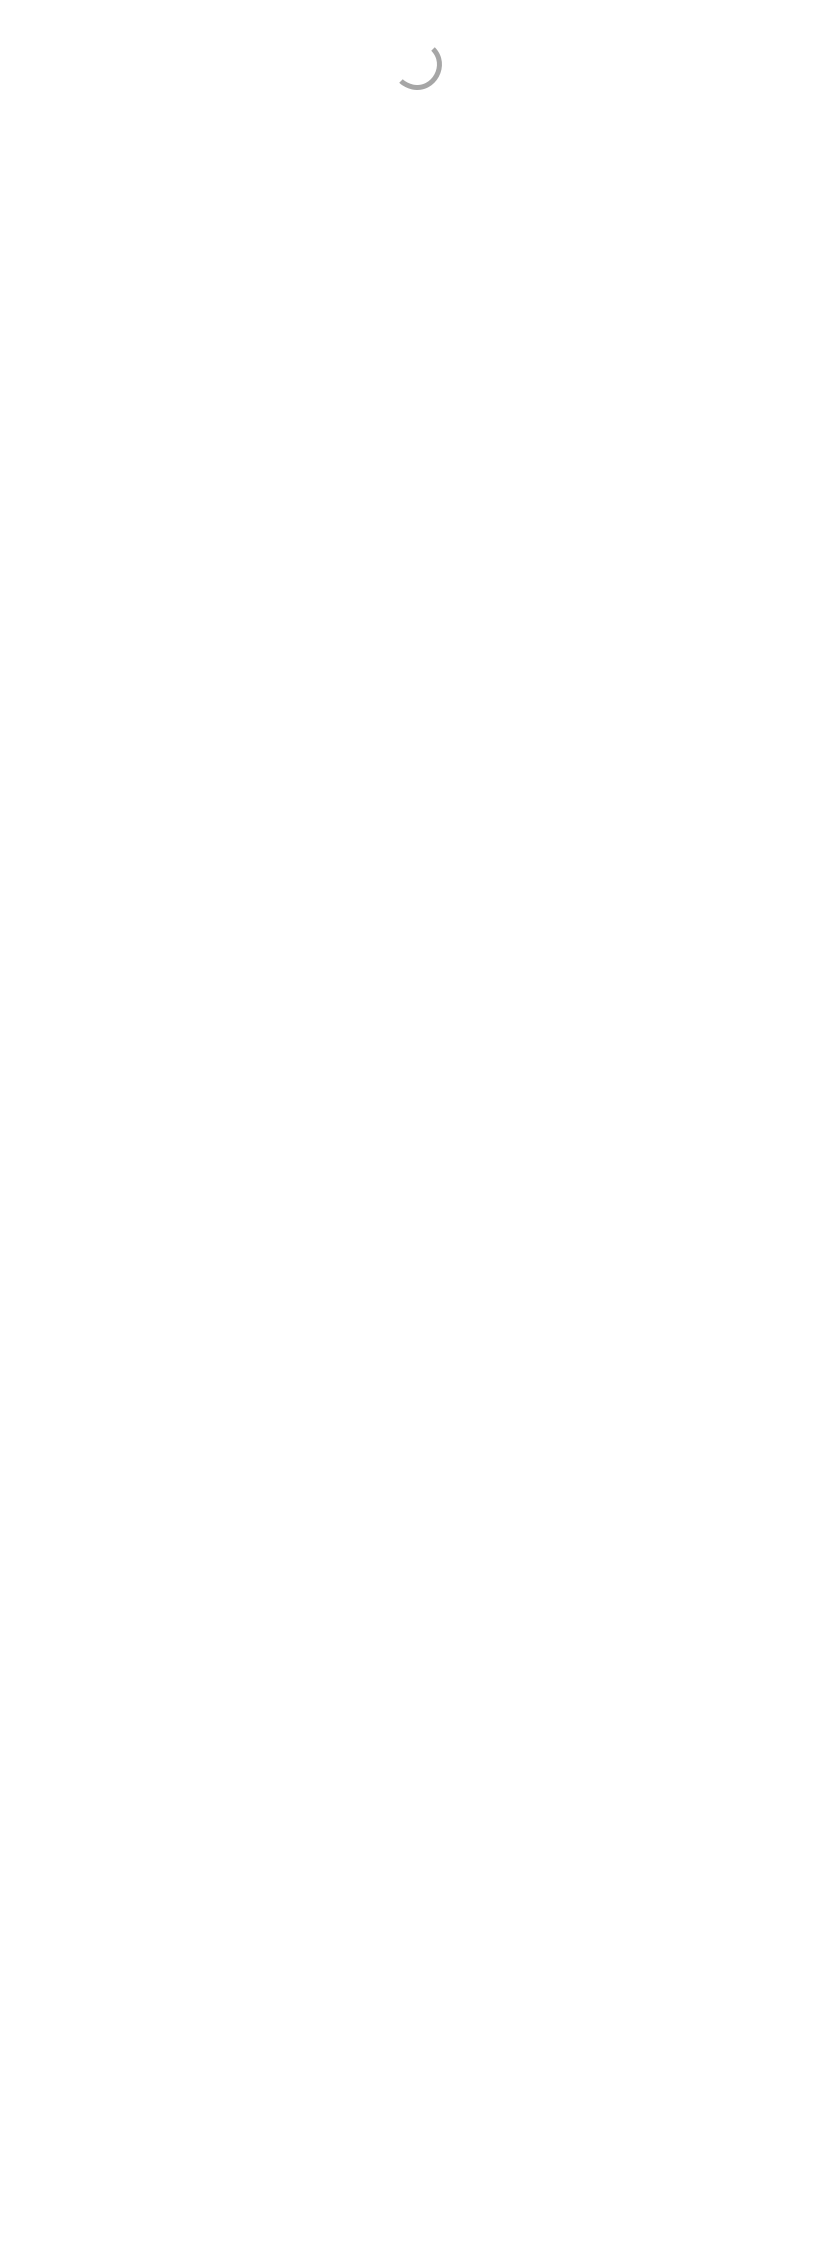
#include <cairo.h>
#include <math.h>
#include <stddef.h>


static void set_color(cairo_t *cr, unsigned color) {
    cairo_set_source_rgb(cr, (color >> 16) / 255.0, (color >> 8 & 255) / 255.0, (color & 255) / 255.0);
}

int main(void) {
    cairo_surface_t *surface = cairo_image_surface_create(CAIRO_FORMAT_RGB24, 834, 2261);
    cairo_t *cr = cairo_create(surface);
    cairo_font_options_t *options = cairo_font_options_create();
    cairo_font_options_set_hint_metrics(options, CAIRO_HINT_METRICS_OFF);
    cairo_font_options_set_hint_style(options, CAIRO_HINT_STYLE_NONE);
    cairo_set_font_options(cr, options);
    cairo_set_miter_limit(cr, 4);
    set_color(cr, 0xFFFFFF);
    cairo_paint(cr);
    cairo_new_path(cr);
    cairo_move_to(cr, 433, 49);
    cairo_curve_to(cr, 448.5, 64.5, 434, 91.5, 412.5, 87);
    cairo_curve_to(cr, 408.5, 86, 404, 84, 401, 81);
    set_color(cr, 0xA6A6A6);
    cairo_set_line_width(cr, 5);
    cairo_stroke(cr);
    cairo_surface_write_to_png(surface, "output.png");
    cairo_font_options_destroy(options);
    cairo_destroy(cr);
    cairo_surface_destroy(surface);
    return 0;
}
